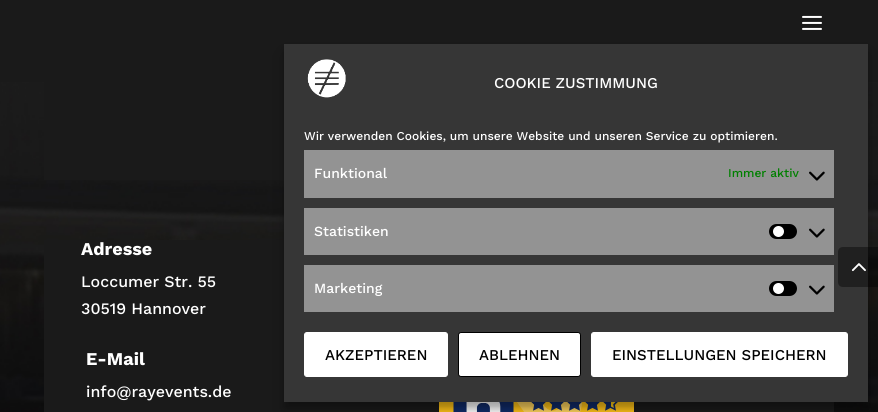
#include <cairo.h>
#include <math.h>
#include <stddef.h>


static void set_color(cairo_t *cr, unsigned color) {
    cairo_set_source_rgb(cr, (color >> 16) / 255.0, (color >> 8 & 255) / 255.0, (color & 255) / 255.0);
}

static void draw_text(cairo_t *cr, double x, double y, const char *s, const char *family, double size, int italic, int bold, unsigned color) {
    cairo_select_font_face(cr, family, italic ? CAIRO_FONT_SLANT_ITALIC : CAIRO_FONT_SLANT_NORMAL,
        bold ? CAIRO_FONT_WEIGHT_BOLD : CAIRO_FONT_WEIGHT_NORMAL);
    cairo_set_font_size(cr, size);
    set_color(cr, color);
    cairo_move_to(cr, x, y);
    cairo_show_text(cr, s);
}

static void fill_rect(cairo_t *cr, double x, double y, double w, double h, unsigned color) {
    set_color(cr, color);
    cairo_rectangle(cr, x, y, w, h);
    cairo_fill(cr);
}

static void rounded_rect(cairo_t *cr, double x, double y, double w, double h, double r) {
    cairo_new_sub_path(cr);
    cairo_arc(cr, x + w - r, y + h - r, r, 0, M_PI / 2);
    cairo_arc(cr, x + r, y + h - r, r, M_PI / 2, M_PI);
    cairo_arc(cr, x + r, y + r, r, M_PI, 1.5 * M_PI);
    cairo_arc(cr, x + w - r, y + r, r, 1.5 * M_PI, 2 * M_PI);
    cairo_close_path(cr);
}

static void draw_shadow(cairo_t *cr, double x, double y, double w, double h, double r, double blur, double alpha) {
    cairo_push_group_with_content(cr, CAIRO_CONTENT_ALPHA);
    cairo_set_operator(cr, CAIRO_OPERATOR_SOURCE);
    for (int i = 15; i >= -15 && fmin(w, h) + blur * i / 3 > 0; i -= 2) {
        double e = blur * i / 6;
        cairo_set_source_rgba(cr, 0, 0, 0, alpha * erfc((i - 1) / 8.5) / 2);
        rounded_rect(cr, x - e, y - e, w + 2 * e, h + 2 * e, fmax(0, fmin(r + e + blur * .6, fmin(w, h) / 2 + e)));
        cairo_fill(cr);
    }
    cairo_pattern_t *soft = cairo_pop_group(cr);
    cairo_mask(cr, soft);
    cairo_pattern_destroy(soft);
}

static void draw_image(cairo_t *cr, const char *path, double x, double y, double w, double h) {
    cairo_surface_t *image = cairo_image_surface_create_from_png(path);
    cairo_save(cr);
    cairo_set_source_surface(cr, image, x, y);
    cairo_rectangle(cr, x, y, w, h);
    cairo_fill(cr);
    cairo_restore(cr);
    cairo_surface_destroy(image);
}

int main(void) {
    cairo_surface_t *surface = cairo_image_surface_create(CAIRO_FORMAT_RGB24, 878, 412);
    cairo_t *cr = cairo_create(surface);
    cairo_font_options_t *options = cairo_font_options_create();
    cairo_font_options_set_hint_metrics(options, CAIRO_HINT_METRICS_OFF);
    cairo_font_options_set_hint_style(options, CAIRO_HINT_STYLE_NONE);
    cairo_set_font_options(cr, options);
    cairo_set_miter_limit(cr, 4);
    set_color(cr, 0xFFFFFF);
    cairo_paint(cr);
    fill_rect(cr, 0, 0, 878, 82, 0x1A1A1A);
    draw_image(cr, "assets/img1.png", 802, 15, 20, 15);
    draw_image(cr, "assets/img2.png", 0, 82, 878, 330);
    fill_rect(cr, 44, 82, 240, 98, 0x1A1A1A);
    fill_rect(cr, 44, 240, 240, 110, 0x1A1A1A);
    draw_text(cr, 81, 255, "Adresse", "Work Sans", 18, 0, 1, 0xFFFFFF);
    draw_text(cr, 81, 287, "Loccumer Str. 55", "Work Sans Medium", 16, 0, 0, 0xFFFFFF);
    draw_text(cr, 81, 314, "30519 Hannover", "Work Sans Medium", 16, 0, 0, 0xFFFFFF);
    fill_rect(cr, 44, 350, 395, 62, 0x1A1A1A);
    draw_text(cr, 86, 365, "E-Mail", "Work Sans", 18, 0, 1, 0xFFFFFF);
    draw_text(cr, 86, 397, "info@rayevents.de", "Work Sans Medium", 16, 0, 0, 0xFFFFFF);
    fill_rect(cr, 634, 402, 200, 10, 0x1A1A1A);
    draw_image(cr, "assets/img3.png", 439, 402, 195, 10);
    set_color(cr, 0x000000);
    draw_shadow(cr, 284, 50, 584, 358, 0, 3, 0.23);
    draw_shadow(cr, 284, 54, 584, 358, 0, 10, 0.19);
    fill_rect(cr, 284, 44, 584, 358, 0x363636);
    draw_image(cr, "assets/img4.png", 307, 59, 39, 39);
    draw_text(cr, 494, 88, "COOKIE ZUSTIMMUNG", "Work Sans Medium", 15, 0, 0, 0xFFFFFF);
    draw_text(cr, 304, 140, "Wir verwenden Cookies, um unsere Website und unseren Service zu optimieren.", "Work Sans Medium", 12, 0, 0, 0xFFFFFF);
    fill_rect(cr, 304, 150, 530, 48, 0x939393);
    draw_text(cr, 314, 178, "Funktional", "Work Sans Medium", 14, 0, 0, 0xFFFFFF);
    draw_text(cr, 728, 177, "Immer aktiv", "Work Sans Medium", 12, 0, 0, 0x008000);
    draw_image(cr, "assets/img5.png", 809, 171, 16, 10);
    fill_rect(cr, 304, 208, 530, 47, 0x939393);
    draw_text(cr, 314, 236, "Statistiken", "Work Sans Medium", 14, 0, 0, 0xFFFFFF);
    set_color(cr, 0x000000);
    rounded_rect(cr, 769, 224, 28, 15, 7.5);
    cairo_fill(cr);
    set_color(cr, 0xFFFFFF);
    cairo_arc(cr, 778.5, 231.5, 5.5, 0, 2 * M_PI);
    cairo_fill(cr);
    draw_image(cr, "assets/img5.png", 809, 228, 16, 10);
    fill_rect(cr, 304, 265, 530, 47, 0x939393);
    draw_text(cr, 314, 293, "Marketing", "Work Sans Medium", 14, 0, 0, 0xFFFFFF);
    set_color(cr, 0x000000);
    rounded_rect(cr, 769, 281, 28, 15, 7.5);
    cairo_fill(cr);
    set_color(cr, 0xFFFFFF);
    cairo_arc(cr, 778.5, 288.5, 5.5, 0, 2 * M_PI);
    cairo_fill(cr);
    draw_image(cr, "assets/img5.png", 809, 285, 16, 10);
    rounded_rect(cr, 304.5, 332.5, 143, 44, 2.5);
    cairo_fill_preserve(cr);
    cairo_set_line_width(cr, 1);
    cairo_stroke(cr);
    draw_text(cr, 325, 360, "AKZEPTIEREN", "Work Sans Medium", 15, 0, 0, 0x000000);
    set_color(cr, 0xFFFFFF);
    rounded_rect(cr, 458.5, 332.5, 122, 44, 2.5);
    cairo_fill_preserve(cr);
    set_color(cr, 0x000000);
    cairo_stroke(cr);
    draw_text(cr, 479, 360, "ABLEHNEN", "Work Sans Medium", 15, 0, 0, 0x000000);
    set_color(cr, 0xFFFFFF);
    rounded_rect(cr, 591.5, 332.5, 256, 44, 2.5);
    cairo_fill_preserve(cr);
    cairo_stroke(cr);
    draw_text(cr, 612, 360, "EINSTELLUNGEN SPEICHERN", "Work Sans Medium", 15, 0, 0, 0x000000);
    cairo_set_source_rgba(cr, 0, 0, 0, 0.4);
    cairo_new_path(cr);
    cairo_move_to(cr, 843, 247);
    cairo_line_to(cr, 878, 247);
    cairo_line_to(cr, 878, 287);
    cairo_line_to(cr, 843, 287);
    cairo_curve_to(cr, 840, 287, 838, 285, 838, 282);
    cairo_line_to(cr, 838, 252);
    cairo_curve_to(cr, 838, 249, 840, 247, 843, 247);
    cairo_close_path(cr);
    cairo_fill(cr);
    draw_image(cr, "assets/img6.png", 851, 263, 15, 9);
    cairo_surface_write_to_png(surface, "output.png");
    cairo_font_options_destroy(options);
    cairo_destroy(cr);
    cairo_surface_destroy(surface);
    return 0;
}
